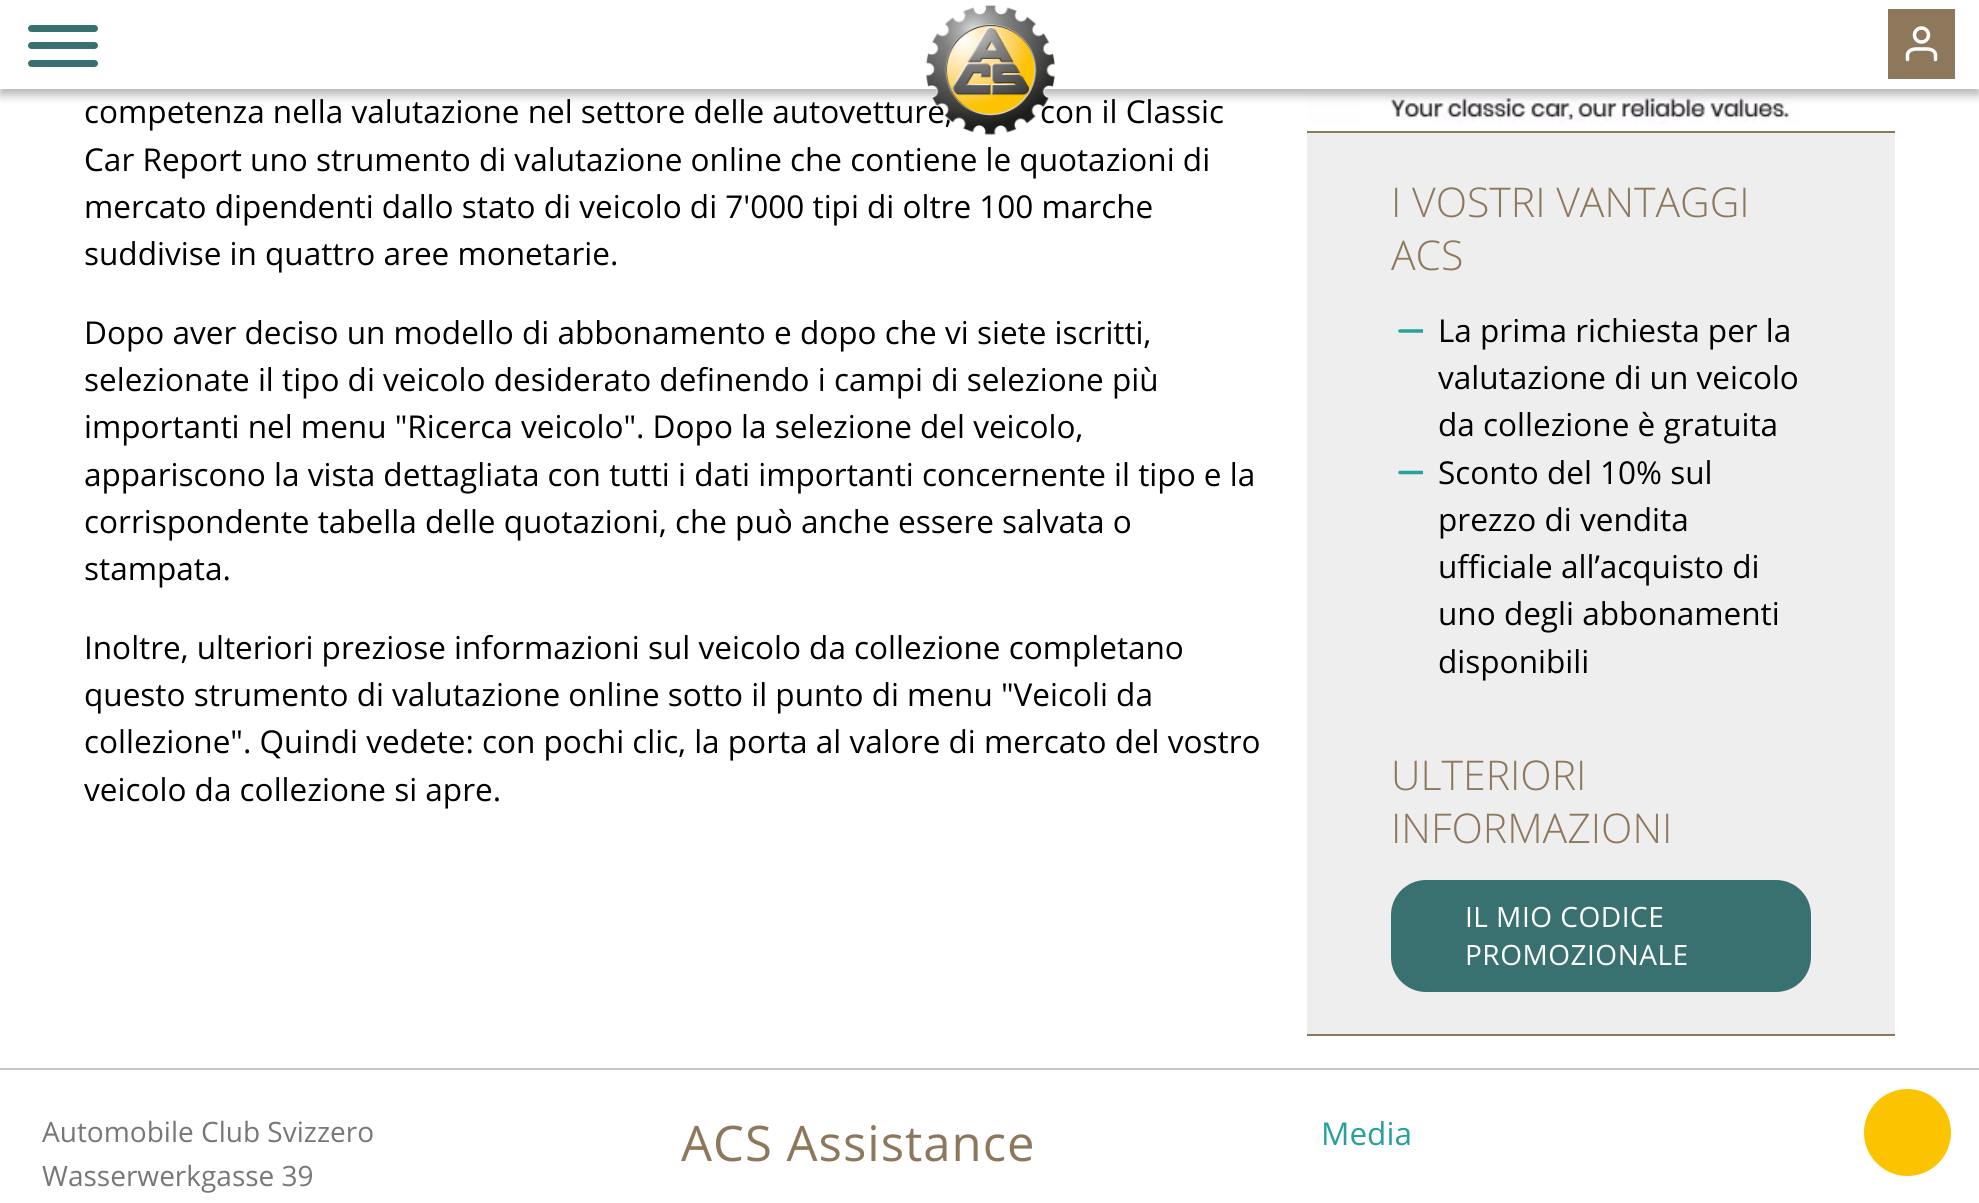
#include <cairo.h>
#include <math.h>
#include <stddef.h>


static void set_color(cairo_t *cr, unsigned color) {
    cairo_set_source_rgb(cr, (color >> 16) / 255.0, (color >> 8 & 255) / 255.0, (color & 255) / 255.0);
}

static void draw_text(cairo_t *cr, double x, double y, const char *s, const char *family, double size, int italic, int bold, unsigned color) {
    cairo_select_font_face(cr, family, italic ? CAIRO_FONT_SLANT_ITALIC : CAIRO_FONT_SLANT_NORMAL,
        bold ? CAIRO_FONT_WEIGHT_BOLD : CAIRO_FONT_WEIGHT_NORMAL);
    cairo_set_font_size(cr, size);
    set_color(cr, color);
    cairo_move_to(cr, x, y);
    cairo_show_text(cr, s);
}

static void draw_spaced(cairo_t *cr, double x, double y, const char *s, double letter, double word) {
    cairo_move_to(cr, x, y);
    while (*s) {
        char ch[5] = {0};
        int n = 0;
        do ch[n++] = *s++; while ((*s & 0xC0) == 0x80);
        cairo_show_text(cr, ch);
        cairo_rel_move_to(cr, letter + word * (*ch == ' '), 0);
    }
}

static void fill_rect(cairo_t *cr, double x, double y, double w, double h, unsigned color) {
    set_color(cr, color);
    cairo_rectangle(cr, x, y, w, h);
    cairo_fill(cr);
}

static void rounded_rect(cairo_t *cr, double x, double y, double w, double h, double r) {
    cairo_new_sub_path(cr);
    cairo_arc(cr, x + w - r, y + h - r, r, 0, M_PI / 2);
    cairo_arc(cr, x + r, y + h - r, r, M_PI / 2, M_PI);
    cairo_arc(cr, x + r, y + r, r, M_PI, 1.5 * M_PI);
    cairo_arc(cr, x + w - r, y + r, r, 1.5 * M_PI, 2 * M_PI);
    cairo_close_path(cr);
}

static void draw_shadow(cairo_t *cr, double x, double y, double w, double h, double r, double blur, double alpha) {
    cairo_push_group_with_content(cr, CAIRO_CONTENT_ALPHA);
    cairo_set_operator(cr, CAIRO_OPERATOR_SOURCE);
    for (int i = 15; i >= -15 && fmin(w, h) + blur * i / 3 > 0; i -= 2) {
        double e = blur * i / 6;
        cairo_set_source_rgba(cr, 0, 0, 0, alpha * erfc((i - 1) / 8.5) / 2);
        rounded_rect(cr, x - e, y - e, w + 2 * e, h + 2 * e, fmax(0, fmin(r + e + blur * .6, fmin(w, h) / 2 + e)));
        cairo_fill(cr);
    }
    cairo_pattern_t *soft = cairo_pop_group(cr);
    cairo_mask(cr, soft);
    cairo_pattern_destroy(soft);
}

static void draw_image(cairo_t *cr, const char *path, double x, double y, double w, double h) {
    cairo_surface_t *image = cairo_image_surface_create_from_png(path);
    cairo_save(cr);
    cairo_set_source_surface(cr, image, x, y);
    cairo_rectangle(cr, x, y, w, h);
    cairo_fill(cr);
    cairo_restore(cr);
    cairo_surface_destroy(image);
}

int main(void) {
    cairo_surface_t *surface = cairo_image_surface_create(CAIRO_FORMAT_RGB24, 1979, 1203);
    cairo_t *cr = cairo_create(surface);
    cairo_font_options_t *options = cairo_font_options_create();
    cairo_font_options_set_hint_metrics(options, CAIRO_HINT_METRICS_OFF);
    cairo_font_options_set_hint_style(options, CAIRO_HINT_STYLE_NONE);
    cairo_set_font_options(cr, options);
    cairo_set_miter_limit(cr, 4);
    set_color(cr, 0xFFFFFF);
    cairo_paint(cr);
    draw_image(cr, "assets/img2.png", 1307, 89, 583, 36);
    set_color(cr, 0x000000);
    draw_shadow(cr, 0, 5, 1979, 90, 0, 5, 0.3);
    fill_rect(cr, 0, 0, 1979, 89, 0xFFFFFF);
    set_color(cr, 0x38716F);
    rounded_rect(cr, 28, 42, 70, 7, 3.5);
    cairo_fill(cr);
    rounded_rect(cr, 28, 25, 70, 7, 3.5);
    cairo_fill(cr);
    rounded_rect(cr, 28, 60, 70, 7, 3.5);
    cairo_fill(cr);
    draw_text(cr, 84, 123, "competenza nella valutazione nel settore delle autovetture,", "Open Sans", 31.5, 0, 0, 0x000000);
    draw_text(cr, 1040, 123, "con il Classic", "Open Sans", 31.5, 0, 0, 0x000000);
    draw_image(cr, "assets/img1.png", 925, 5, 130, 130);
    fill_rect(cr, 1888, 9, 67, 70, 0x8E785C);
    cairo_new_path(cr);
    cairo_move_to(cr, 1935.5, 59.5);
    cairo_line_to(cr, 1935.5, 54.5);
    cairo_curve_to(cr, 1934, 48, 1926.5, 49, 1921.5, 49);
    cairo_curve_to(cr, 1916.5, 49, 1909, 48, 1907.5, 54.5);
    cairo_line_to(cr, 1907.5, 59.5);
    set_color(cr, 0xFFFFFF);
    cairo_set_line_width(cr, 3.5);
    cairo_set_line_cap(cr, CAIRO_LINE_CAP_ROUND);
    cairo_set_line_join(cr, CAIRO_LINE_JOIN_ROUND);
    cairo_stroke(cr);
    cairo_arc(cr, 1921.5, 35, 7, 0, 2 * M_PI);
    cairo_set_line_cap(cr, CAIRO_LINE_CAP_BUTT);
    cairo_set_line_join(cr, CAIRO_LINE_JOIN_MITER);
    cairo_stroke(cr);
    draw_text(cr, 84, 171, "Car Report uno strumento di valutazione online che contiene le quotazioni di", "Open Sans", 31.5, 0, 0, 0x000000);
    draw_text(cr, 84, 218, "mercato dipendenti dallo stato di veicolo di 7'000 tipi di oltre 100 marche", "Open Sans", 31.5, 0, 0, 0x000000);
    draw_text(cr, 84, 265, "suddivise in quattro aree monetarie.", "Open Sans", 31.5, 0, 0, 0x000000);
    draw_text(cr, 84, 344, "Dopo aver deciso un modello di abbonamento e dopo che vi siete iscritti,", "Open Sans", 31.5, 0, 0, 0x000000);
    draw_text(cr, 84, 391, "selezionate il tipo di veicolo desiderato definendo i campi di selezione più", "Open Sans", 31.5, 0, 0, 0x000000);
    draw_text(cr, 84, 438, "importanti nel menu \"Ricerca veicolo\". Dopo la selezione del veicolo,", "Open Sans", 31.5, 0, 0, 0x000000);
    draw_text(cr, 84, 486, "appariscono la vista dettagliata con tutti i dati importanti concernente il tipo e la", "Open Sans", 31.5, 0, 0, 0x000000);
    draw_text(cr, 84, 533, "corrispondente tabella delle quotazioni, che può anche essere salvata o", "Open Sans", 31.5, 0, 0, 0x000000);
    draw_text(cr, 84, 580, "stampata.", "Open Sans", 31.5, 0, 0, 0x000000);
    draw_text(cr, 84, 659, "Inoltre, ulteriori preziose informazioni sul veicolo da collezione completano", "Open Sans", 31.5, 0, 0, 0x000000);
    draw_text(cr, 84, 706, "questo strumento di valutazione online sotto il punto di menu \"Veicoli da", "Open Sans", 31.5, 0, 0, 0x000000);
    draw_text(cr, 84, 753, "collezione\". Quindi vedete: con pochi clic, la porta al valore di mercato del vostro", "Open Sans", 31.5, 0, 0, 0x000000);
    draw_text(cr, 84, 801, "veicolo da collezione si apre.", "Open Sans", 31.5, 0, 0, 0x000000);
    fill_rect(cr, 1307, 133, 588, 901, 0xEEEEEE);
    fill_rect(cr, 1307, 131, 588, 2, 0x8E785C);
    fill_rect(cr, 1307, 1034, 588, 2, 0x8E785C);
    draw_text(cr, 1391, 217, "I VOSTRI VANTAGGI", "Open Sans Light", 41, 0, 0, 0x8E785C);
    draw_text(cr, 1391, 270, "ACS", "Open Sans Light", 41, 0, 0, 0x8E785C);
    cairo_save(cr);
    cairo_rectangle(cr, 1391, 310, 32, 31);
    cairo_clip(cr);
    cairo_new_path(cr);
    cairo_move_to(cr, 1400, 331);
    cairo_line_to(cr, 1424.5, 331);
    set_color(cr, 0x28A09C);
    cairo_set_line_cap(cr, CAIRO_LINE_CAP_ROUND);
    cairo_set_line_join(cr, CAIRO_LINE_JOIN_ROUND);
    cairo_stroke(cr);
    cairo_restore(cr);
    draw_text(cr, 1438, 342, "La prima richiesta per la", "Open Sans", 31.5, 0, 0, 0x000000);
    draw_text(cr, 1438, 389, "valutazione di un veicolo", "Open Sans", 31.5, 0, 0, 0x000000);
    draw_text(cr, 1438, 436, "da collezione è gratuita", "Open Sans", 31.5, 0, 0, 0x000000);
    cairo_save(cr);
    cairo_rectangle(cr, 1391, 452, 32, 31);
    cairo_clip(cr);
    cairo_new_path(cr);
    cairo_move_to(cr, 1400, 472.5);
    cairo_line_to(cr, 1424.5, 472.5);
    set_color(cr, 0x28A09C);
    cairo_set_line_cap(cr, CAIRO_LINE_CAP_ROUND);
    cairo_set_line_join(cr, CAIRO_LINE_JOIN_ROUND);
    cairo_stroke(cr);
    cairo_restore(cr);
    draw_text(cr, 1438, 484, "Sconto del 10% sul", "Open Sans", 31.5, 0, 0, 0x000000);
    draw_text(cr, 1438, 531, "prezzo di vendita", "Open Sans", 31.5, 0, 0, 0x000000);
    draw_text(cr, 1438, 578, "ufficiale all’acquisto di", "Open Sans", 31.5, 0, 0, 0x000000);
    draw_text(cr, 1438, 625, "uno degli abbonamenti", "Open Sans", 31.5, 0, 0, 0x000000);
    draw_text(cr, 1438, 673, "disponibili", "Open Sans", 31.5, 0, 0, 0x000000);
    draw_text(cr, 1391, 790, "ULTERIORI", "Open Sans Light", 41, 0, 0, 0x8E785C);
    draw_text(cr, 1391, 843, "INFORMAZIONI", "Open Sans Light", 41, 0, 0, 0x8E785C);
    set_color(cr, 0x38716F);
    rounded_rect(cr, 1392, 881, 418, 110, 34);
    cairo_fill_preserve(cr);
    cairo_set_line_width(cr, 2);
    cairo_stroke(cr);
    cairo_select_font_face(cr, "Open Sans", CAIRO_FONT_SLANT_NORMAL, CAIRO_FONT_WEIGHT_NORMAL);
    cairo_set_font_size(cr, 28);
    set_color(cr, 0xFFFFFF);
    draw_spaced(cr, 1465, 927, "IL MIO CODICE", 0.5, 0);
    draw_spaced(cr, 1465, 965, "PROMOZIONALE", 0.5, 0);
    fill_rect(cr, 0, 1068, 1979, 2, 0xC6C6C6);
    draw_text(cr, 42, 1142, "Automobile Club Svizzero", "Open Sans", 28, 0, 0, 0x777776);
    draw_text(cr, 42, 1186, "Wasserwerkgasse 39", "Open Sans", 28, 0, 0, 0x777776);
    cairo_set_font_size(cr, 49);
    set_color(cr, 0x8E785C);
    draw_spaced(cr, 681, 1161, "ACS Assistance", 1, 0);
    draw_text(cr, 1321, 1145, "Media", "Open Sans", 31.5, 0, 0, 0x28A09C);
    set_color(cr, 0xFCC300);
    cairo_new_path(cr);
    cairo_arc(cr, 1907.5, 1132.5, 43.5, 0, 2 * M_PI);
    cairo_fill(cr);
    cairo_surface_write_to_png(surface, "output.png");
    cairo_font_options_destroy(options);
    cairo_destroy(cr);
    cairo_surface_destroy(surface);
    return 0;
}
